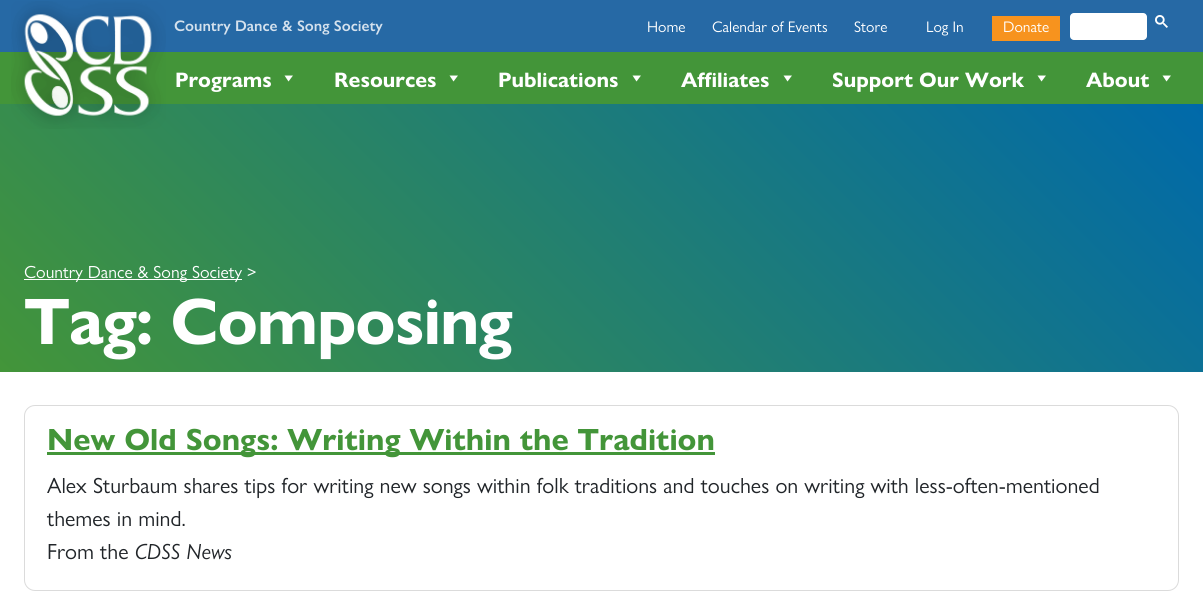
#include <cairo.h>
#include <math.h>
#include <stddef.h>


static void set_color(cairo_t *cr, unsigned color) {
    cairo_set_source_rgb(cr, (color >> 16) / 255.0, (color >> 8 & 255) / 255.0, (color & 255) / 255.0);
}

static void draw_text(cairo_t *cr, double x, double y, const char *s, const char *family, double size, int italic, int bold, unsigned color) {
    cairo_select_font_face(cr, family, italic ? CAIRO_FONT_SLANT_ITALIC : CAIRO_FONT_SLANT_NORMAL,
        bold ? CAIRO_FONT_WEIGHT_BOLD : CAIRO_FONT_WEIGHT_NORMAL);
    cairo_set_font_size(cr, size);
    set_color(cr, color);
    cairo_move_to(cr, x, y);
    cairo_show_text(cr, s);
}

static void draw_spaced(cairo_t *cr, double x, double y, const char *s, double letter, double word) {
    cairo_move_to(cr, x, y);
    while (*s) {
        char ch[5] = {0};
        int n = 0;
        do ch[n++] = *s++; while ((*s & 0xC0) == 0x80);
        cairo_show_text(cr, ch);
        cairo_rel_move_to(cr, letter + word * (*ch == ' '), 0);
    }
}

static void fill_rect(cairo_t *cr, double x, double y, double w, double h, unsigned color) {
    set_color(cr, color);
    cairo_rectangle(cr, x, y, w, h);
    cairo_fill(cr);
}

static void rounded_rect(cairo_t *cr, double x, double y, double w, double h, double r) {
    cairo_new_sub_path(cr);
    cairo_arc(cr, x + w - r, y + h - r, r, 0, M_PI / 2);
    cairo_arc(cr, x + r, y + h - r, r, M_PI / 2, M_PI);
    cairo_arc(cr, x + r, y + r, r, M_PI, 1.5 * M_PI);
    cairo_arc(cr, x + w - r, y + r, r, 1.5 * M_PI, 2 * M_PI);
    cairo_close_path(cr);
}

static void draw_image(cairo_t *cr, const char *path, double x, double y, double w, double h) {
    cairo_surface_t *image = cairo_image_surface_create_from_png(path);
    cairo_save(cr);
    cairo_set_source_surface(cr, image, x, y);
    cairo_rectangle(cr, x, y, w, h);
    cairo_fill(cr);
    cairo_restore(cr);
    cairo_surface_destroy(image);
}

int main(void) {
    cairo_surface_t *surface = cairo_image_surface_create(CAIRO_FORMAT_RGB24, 1203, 599);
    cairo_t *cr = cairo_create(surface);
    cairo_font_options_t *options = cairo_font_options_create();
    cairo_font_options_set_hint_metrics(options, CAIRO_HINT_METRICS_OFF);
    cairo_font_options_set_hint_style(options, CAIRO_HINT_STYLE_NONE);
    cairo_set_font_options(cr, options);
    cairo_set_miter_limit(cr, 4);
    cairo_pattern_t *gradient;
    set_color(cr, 0xFFFFFF);
    cairo_paint(cr);
    fill_rect(cr, 0, 0, 1203, 52, 0x2669A5);
    fill_rect(cr, 0, 52, 1203, 52, 0x439539);
    gradient = cairo_pattern_create_linear(234, 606, 969, -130);
    cairo_pattern_add_color_stop_rgba(gradient, 0, 0.263, 0.584, 0.224, 1);
    cairo_pattern_add_color_stop_rgba(gradient, 1, 0, 0.412, 0.667, 1);
    cairo_set_source(cr, gradient);
    cairo_pattern_destroy(gradient);
    cairo_rectangle(cr, 0, 104, 1203, 268);
    cairo_fill(cr);
    draw_image(cr, "assets/img1.png", 11, 1, 155, 128);
    draw_text(cr, 174, 31, "Country Dance & Song Society", "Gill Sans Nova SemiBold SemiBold", 15.4, 0, 0, 0xD4E1ED);
    draw_text(cr, 647, 32, "Home", "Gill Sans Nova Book", 15.4, 0, 0, 0xFFFFFF);
    draw_text(cr, 712, 32, "Calendar of Events", "Gill Sans Nova Book", 15.4, 0, 0, 0xFFFFFF);
    draw_text(cr, 854, 32, "Store", "Gill Sans Nova Book", 15.4, 0, 0, 0xFFFFFF);
    draw_text(cr, 926, 32, "Log In", "Gill Sans Nova Book", 15.4, 0, 0, 0xFFFFFF);
    fill_rect(cr, 992, 16, 68, 25, 0xF7931E);
    draw_text(cr, 1003, 32, "Donate", "Gill Sans Nova Book", 15.4, 0, 0, 0xFFFFFF);
    rounded_rect(cr, 1070, 13, 77, 27, 4);
    cairo_fill(cr);
    draw_image(cr, "assets/img2.png", 1155, 15, 13, 13);
    draw_text(cr, 175, 87, "Programs", "Gill Sans Nova Book", 21, 0, 1, 0xFFFFFF);
    cairo_new_path(cr);
    cairo_move_to(cr, 293, 75.5);
    cairo_line_to(cr, 288.5, 81.5);
    cairo_line_to(cr, 284.5, 75.5);
    cairo_close_path(cr);
    cairo_fill(cr);
    draw_text(cr, 334, 87, "Resources", "Gill Sans Nova Book", 21, 0, 1, 0xFFFFFF);
    cairo_new_path(cr);
    cairo_move_to(cr, 458, 75.5);
    cairo_line_to(cr, 453.5, 81.5);
    cairo_line_to(cr, 449.5, 75.5);
    cairo_close_path(cr);
    cairo_fill(cr);
    draw_text(cr, 498, 87, "Publications", "Gill Sans Nova Book", 21, 0, 1, 0xFFFFFF);
    cairo_new_path(cr);
    cairo_move_to(cr, 641, 75.5);
    cairo_line_to(cr, 636.5, 81.5);
    cairo_line_to(cr, 632.5, 75.5);
    cairo_close_path(cr);
    cairo_fill(cr);
    draw_text(cr, 681, 87, "Affiliates", "Gill Sans Nova Book", 21, 0, 1, 0xFFFFFF);
    cairo_new_path(cr);
    cairo_move_to(cr, 792, 75.5);
    cairo_line_to(cr, 787.5, 81.5);
    cairo_line_to(cr, 783.5, 75.5);
    cairo_close_path(cr);
    cairo_fill(cr);
    draw_text(cr, 832, 87, "Support Our Work", "Gill Sans Nova Book", 21, 0, 1, 0xFFFFFF);
    cairo_new_path(cr);
    cairo_move_to(cr, 1046, 75.5);
    cairo_line_to(cr, 1041.5, 81.5);
    cairo_line_to(cr, 1037.5, 75.5);
    cairo_close_path(cr);
    cairo_fill(cr);
    draw_text(cr, 1086, 87, "About", "Gill Sans Nova Book", 21, 0, 1, 0xFFFFFF);
    cairo_new_path(cr);
    cairo_move_to(cr, 1171, 75.5);
    cairo_line_to(cr, 1166.5, 81.5);
    cairo_line_to(cr, 1162.5, 75.5);
    cairo_close_path(cr);
    cairo_fill(cr);
    fill_rect(cr, 24, 279, 218, 1, 0xFFFFFF);
    draw_text(cr, 24, 278, "Country Dance & Song Society", "Gill Sans Nova Book", 17.6, 0, 0, 0xFFFFFF);
    draw_text(cr, 247, 278, ">", "Gill Sans Nova Book", 17.6, 0, 0, 0xFFFFFF);
    cairo_select_font_face(cr, "Gill Sans Nova Book", CAIRO_FONT_SLANT_NORMAL, CAIRO_FONT_WEIGHT_BOLD);
    cairo_set_font_size(cr, 66);
    draw_spaced(cr, 24, 344, "Tag: Composing", -1.1, 0);
    rounded_rect(cr, 24.5, 405.5, 1154, 185, 10.5);
    set_color(cr, 0xDBDBDB);
    cairo_set_line_width(cr, 1);
    cairo_stroke(cr);
    fill_rect(cr, 47, 452, 668, 3, 0x439539);
    draw_text(cr, 47, 450, "New Old Songs: Writing Within the Tradition", "Gill Sans Nova Book", 30.8, 0, 1, 0x439539);
    draw_text(cr, 47, 493, "Alex Sturbaum shares tips for writing new songs within folk traditions and touches on writing with less-often-mentioned", "Gill Sans Nova Book", 22, 0, 0, 0x212529);
    draw_text(cr, 47, 526, "themes in mind.", "Gill Sans Nova Book", 22, 0, 0, 0x212529);
    draw_text(cr, 47, 559, "From the", "Gill Sans Nova Book", 22, 0, 0, 0x212529);
    draw_text(cr, 135, 559, "CDSS News", "Gill Sans Nova Book", 22, 1, 0, 0x212529);
    cairo_surface_write_to_png(surface, "output.png");
    cairo_font_options_destroy(options);
    cairo_destroy(cr);
    cairo_surface_destroy(surface);
    return 0;
}
